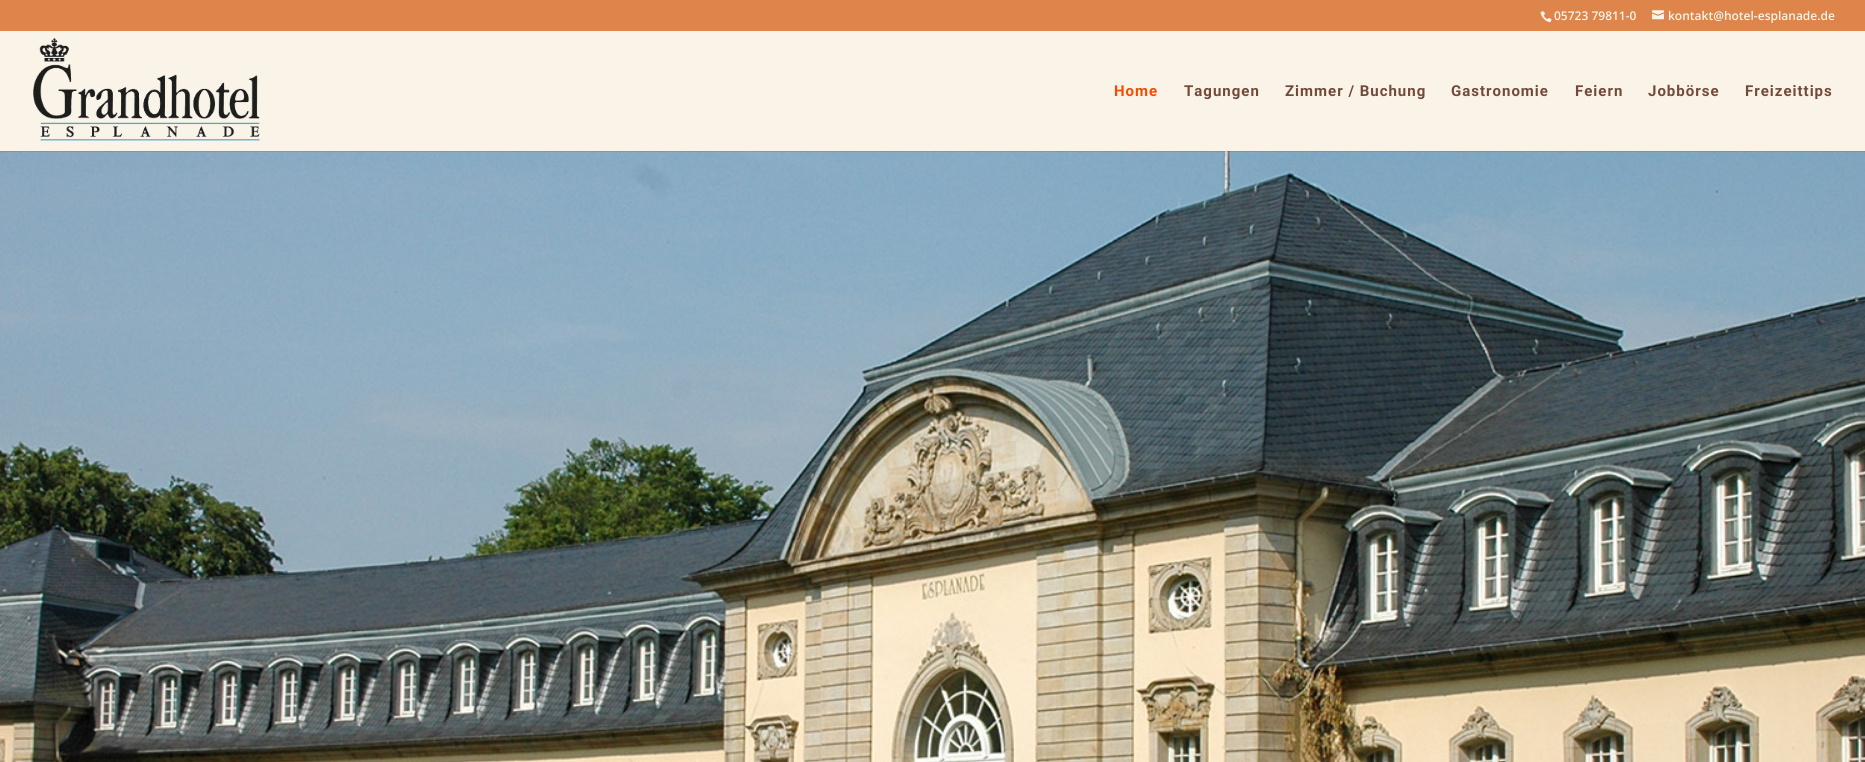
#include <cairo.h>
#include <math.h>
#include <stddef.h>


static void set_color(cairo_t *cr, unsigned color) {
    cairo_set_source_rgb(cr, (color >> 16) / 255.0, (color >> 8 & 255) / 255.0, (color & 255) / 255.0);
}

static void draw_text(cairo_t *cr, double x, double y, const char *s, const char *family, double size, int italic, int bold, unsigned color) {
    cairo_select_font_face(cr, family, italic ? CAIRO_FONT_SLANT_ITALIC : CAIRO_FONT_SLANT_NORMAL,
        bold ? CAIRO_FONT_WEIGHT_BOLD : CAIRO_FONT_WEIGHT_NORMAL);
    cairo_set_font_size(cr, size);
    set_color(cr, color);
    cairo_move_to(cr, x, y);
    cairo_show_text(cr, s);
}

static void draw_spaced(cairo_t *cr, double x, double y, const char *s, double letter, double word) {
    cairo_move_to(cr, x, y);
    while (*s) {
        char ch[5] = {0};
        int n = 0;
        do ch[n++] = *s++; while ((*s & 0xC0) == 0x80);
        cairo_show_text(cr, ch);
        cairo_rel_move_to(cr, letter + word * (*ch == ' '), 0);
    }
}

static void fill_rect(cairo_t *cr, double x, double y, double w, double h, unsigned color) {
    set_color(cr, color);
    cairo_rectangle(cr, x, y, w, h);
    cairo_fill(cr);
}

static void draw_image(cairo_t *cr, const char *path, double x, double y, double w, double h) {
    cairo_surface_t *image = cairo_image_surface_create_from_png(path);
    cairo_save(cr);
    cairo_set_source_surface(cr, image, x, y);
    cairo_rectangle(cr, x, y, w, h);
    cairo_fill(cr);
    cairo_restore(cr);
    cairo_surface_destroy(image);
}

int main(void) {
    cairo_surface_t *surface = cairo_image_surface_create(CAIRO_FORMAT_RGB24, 1865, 762);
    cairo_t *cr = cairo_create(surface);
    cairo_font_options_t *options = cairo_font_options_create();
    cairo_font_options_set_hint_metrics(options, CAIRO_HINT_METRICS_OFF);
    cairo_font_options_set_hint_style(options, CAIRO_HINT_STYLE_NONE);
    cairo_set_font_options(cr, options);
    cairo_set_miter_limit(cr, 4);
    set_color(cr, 0xFFFFFF);
    cairo_paint(cr);
    fill_rect(cr, 0, 0, 1865, 31, 0xDD854B);
    draw_image(cr, "assets/img1.png", 1540, 11, 12, 12);
    draw_text(cr, 1554, 20, "05723 79811-0", "Open Sans SemiBold", 12, 0, 0, 0xF9F3E8);
    draw_image(cr, "assets/img2.png", 1652, 10, 12, 10);
    draw_text(cr, 1668, 20, "kontakt@hotel-esplanade.de", "Open Sans SemiBold", 12, 0, 0, 0xF9F3E8);
    draw_image(cr, "assets/img4.png", 0, 151, 1865, 611);
    cairo_set_source_rgba(cr, 0, 0, 0, 0.1);
    cairo_rectangle(cr, 0, 151, 1865, 1);
    cairo_fill(cr);
    fill_rect(cr, 0, 31, 1865, 120, 0xF9F3E8);
    draw_image(cr, "assets/img3.png", 33, 38, 227, 103);
    cairo_select_font_face(cr, "Roboto", CAIRO_FONT_SLANT_NORMAL, CAIRO_FONT_WEIGHT_BOLD);
    cairo_set_font_size(cr, 15);
    set_color(cr, 0xF74A00);
    draw_spaced(cr, 1114, 96, "Home", 1, 0);
    set_color(cr, 0x734A39);
    draw_spaced(cr, 1184, 96, "Tagungen", 1, 0);
    draw_spaced(cr, 1285, 96, "Zimmer / Buchung", 1, 0);
    draw_spaced(cr, 1451, 96, "Gastronomie", 1, 0);
    draw_spaced(cr, 1575, 96, "Feiern", 1, 0);
    draw_spaced(cr, 1648, 96, "Jobbörse", 1, 0);
    draw_spaced(cr, 1745, 96, "Freizeittips", 1, 0);
    cairo_surface_write_to_png(surface, "output.png");
    cairo_font_options_destroy(options);
    cairo_destroy(cr);
    cairo_surface_destroy(surface);
    return 0;
}
